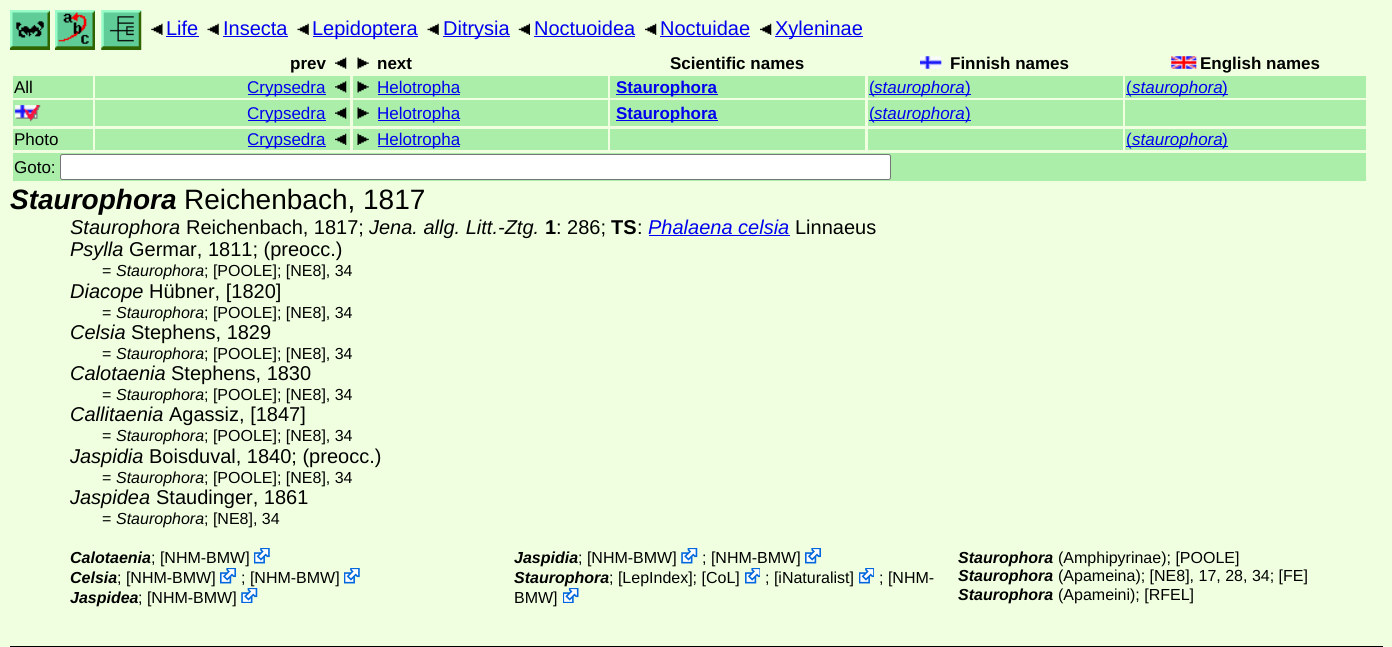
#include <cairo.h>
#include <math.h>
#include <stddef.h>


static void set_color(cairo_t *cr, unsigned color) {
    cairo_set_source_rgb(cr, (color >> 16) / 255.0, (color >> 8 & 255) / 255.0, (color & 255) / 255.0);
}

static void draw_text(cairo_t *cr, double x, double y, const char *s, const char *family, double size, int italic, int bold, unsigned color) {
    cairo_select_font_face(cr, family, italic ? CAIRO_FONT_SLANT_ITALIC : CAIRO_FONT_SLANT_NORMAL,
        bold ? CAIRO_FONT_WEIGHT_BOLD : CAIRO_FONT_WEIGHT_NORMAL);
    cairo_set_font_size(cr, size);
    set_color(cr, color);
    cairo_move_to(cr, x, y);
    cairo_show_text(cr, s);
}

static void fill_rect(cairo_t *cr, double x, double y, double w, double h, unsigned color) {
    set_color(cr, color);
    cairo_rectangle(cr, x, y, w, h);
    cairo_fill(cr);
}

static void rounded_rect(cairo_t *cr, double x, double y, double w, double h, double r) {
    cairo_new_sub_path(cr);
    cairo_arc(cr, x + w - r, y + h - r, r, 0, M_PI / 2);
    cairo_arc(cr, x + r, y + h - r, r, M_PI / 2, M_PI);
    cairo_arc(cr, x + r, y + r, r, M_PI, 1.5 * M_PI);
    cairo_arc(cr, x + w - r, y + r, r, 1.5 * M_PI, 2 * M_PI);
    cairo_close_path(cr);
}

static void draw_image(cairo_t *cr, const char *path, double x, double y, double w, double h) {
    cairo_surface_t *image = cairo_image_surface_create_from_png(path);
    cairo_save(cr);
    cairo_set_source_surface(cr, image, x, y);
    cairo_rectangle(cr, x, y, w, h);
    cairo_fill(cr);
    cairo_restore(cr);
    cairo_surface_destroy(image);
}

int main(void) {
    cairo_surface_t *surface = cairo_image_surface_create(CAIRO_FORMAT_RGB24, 1392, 647);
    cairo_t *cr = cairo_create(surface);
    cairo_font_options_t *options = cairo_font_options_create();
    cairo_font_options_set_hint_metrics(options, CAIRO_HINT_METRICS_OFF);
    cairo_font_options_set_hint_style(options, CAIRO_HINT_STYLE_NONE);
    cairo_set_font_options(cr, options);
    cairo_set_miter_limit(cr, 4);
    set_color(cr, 0xF0FFE0);
    cairo_paint(cr);
    draw_image(cr, "assets/img1.png", 10, 10, 40, 40);
    draw_image(cr, "assets/img2.png", 55, 10, 40, 40);
    draw_image(cr, "assets/img3.png", 101, 10, 41, 40);
    draw_image(cr, "assets/img4.png", 151, 23, 12, 12);
    draw_text(cr, 166, 35, "Life", "Liberation Sans", 20, 0, 0, 0x0000EE);
    fill_rect(cr, 166, 36, 33, 1, 0x0000EE);
    draw_image(cr, "assets/img5.png", 207, 23, 12, 12);
    draw_text(cr, 223, 35, "Insecta", "Liberation Sans", 20, 0, 0, 0x0000EE);
    fill_rect(cr, 223, 36, 65, 1, 0x0000EE);
    draw_image(cr, "assets/img5.png", 297, 23, 12, 12);
    fill_rect(cr, 313, 36, 105, 1, 0x0000EE);
    draw_text(cr, 312, 35, "Lepidoptera", "Liberation Sans", 20, 0, 0, 0x0000EE);
    draw_image(cr, "assets/img5.png", 427, 23, 12, 12);
    fill_rect(cr, 443, 36, 67, 1, 0x0000EE);
    draw_text(cr, 443, 35, "Ditrysia", "Liberation Sans", 20, 0, 0, 0x0000EE);
    draw_image(cr, "assets/img6.png", 518, 23, 12, 12);
    draw_text(cr, 534, 35, "Noctuoidea", "Liberation Sans", 20, 0, 0, 0x0000EE);
    fill_rect(cr, 534, 36, 101, 1, 0x0000EE);
    draw_image(cr, "assets/img7.png", 645, 23, 12, 12);
    draw_text(cr, 660, 35, "Noctuidae", "Liberation Sans", 20, 0, 0, 0x0000EE);
    fill_rect(cr, 660, 36, 90, 1, 0x0000EE);
    draw_image(cr, "assets/img8.png", 760, 23, 12, 12);
    fill_rect(cr, 775, 36, 88, 1, 0x0000EE);
    draw_text(cr, 775, 35, "Xyleninae", "Liberation Sans", 20, 0, 0, 0x0000EE);
    draw_text(cr, 290, 69, "prev", "Liberation Sans", 17, 0, 1, 0x000000);
    draw_image(cr, "assets/img9.png", 335, 57, 12, 12);
    draw_image(cr, "assets/img10.png", 357, 57, 12, 12);
    draw_text(cr, 377, 69, "next", "Liberation Sans", 17, 0, 1, 0x000000);
    draw_text(cr, 670, 69, "Scientific names", "Liberation Sans", 17, 0, 1, 0x000000);
    draw_image(cr, "assets/img11.png", 920, 56, 22, 13);
    draw_text(cr, 950, 69, "Finnish names", "Liberation Sans", 17, 0, 1, 0x000000);
    draw_image(cr, "assets/img12.png", 1171, 56, 26, 13);
    draw_text(cr, 1200, 69, "English names", "Liberation Sans", 17, 0, 1, 0x000000);
    fill_rect(cr, 13, 76, 80, 22, 0xAAEEAA);
    draw_text(cr, 14, 93, "All", "Liberation Sans", 17, 0, 0, 0x000000);
    fill_rect(cr, 95, 76, 255, 22, 0xAAEEAA);
    fill_rect(cr, 248, 94, 78, 1, 0x0000EE);
    draw_text(cr, 247, 93, "Crypsedra", "Liberation Sans", 17, 0, 0, 0x0000EE);
    draw_image(cr, "assets/img13.png", 335, 81, 12, 12);
    fill_rect(cr, 353, 76, 255, 22, 0xAAEEAA);
    draw_image(cr, "assets/img14.png", 357, 81, 12, 12);
    fill_rect(cr, 378, 94, 82, 1, 0x0000EE);
    draw_text(cr, 377, 93, "Helotropha", "Liberation Sans", 17, 0, 0, 0x0000EE);
    fill_rect(cr, 610, 76, 255, 22, 0xAAEEAA);
    fill_rect(cr, 616, 94, 102, 1, 0x0000EE);
    draw_text(cr, 616, 93, "Staurophora", "Liberation Sans", 17, 0, 1, 0x0000EE);
    fill_rect(cr, 868, 76, 255, 22, 0xAAEEAA);
    fill_rect(cr, 869, 94, 5, 1, 0x0000EE);
    draw_text(cr, 869, 93, "(", "Liberation Sans", 17, 0, 0, 0x0000EE);
    fill_rect(cr, 874, 94, 97, 1, 0x0000EE);
    draw_text(cr, 874, 93, "staurophora", "Liberation Sans", 17, 1, 0, 0x0000EE);
    draw_text(cr, 965, 93, ")", "Liberation Sans", 17, 0, 0, 0x0000EE);
    fill_rect(cr, 1125, 76, 241, 22, 0xAAEEAA);
    fill_rect(cr, 1126, 94, 5, 1, 0x0000EE);
    draw_text(cr, 1126, 93, "(", "Liberation Sans", 17, 0, 0, 0x0000EE);
    fill_rect(cr, 1131, 94, 97, 1, 0x0000EE);
    draw_text(cr, 1132, 93, "staurophora", "Liberation Sans", 17, 1, 0, 0x0000EE);
    draw_text(cr, 1222, 93, ")", "Liberation Sans", 17, 0, 0, 0x0000EE);
    fill_rect(cr, 13, 100, 80, 26, 0xAAEEAA);
    draw_image(cr, "assets/img15.png", 14, 105, 27, 17);
    fill_rect(cr, 95, 100, 255, 26, 0xAAEEAA);
    fill_rect(cr, 248, 120, 78, 1, 0x0000EE);
    draw_text(cr, 247, 119, "Crypsedra", "Liberation Sans", 17, 0, 0, 0x0000EE);
    draw_image(cr, "assets/img16.png", 335, 107, 12, 12);
    fill_rect(cr, 353, 100, 255, 26, 0xAAEEAA);
    draw_image(cr, "assets/img17.png", 357, 107, 12, 12);
    fill_rect(cr, 378, 120, 82, 1, 0x0000EE);
    draw_text(cr, 377, 119, "Helotropha", "Liberation Sans", 17, 0, 0, 0x0000EE);
    fill_rect(cr, 610, 100, 255, 26, 0xAAEEAA);
    fill_rect(cr, 616, 120, 102, 1, 0x0000EE);
    draw_text(cr, 616, 119, "Staurophora", "Liberation Sans", 17, 0, 1, 0x0000EE);
    fill_rect(cr, 868, 100, 255, 26, 0xAAEEAA);
    fill_rect(cr, 869, 120, 5, 1, 0x0000EE);
    draw_text(cr, 869, 119, "(", "Liberation Sans", 17, 0, 0, 0x0000EE);
    fill_rect(cr, 874, 120, 97, 1, 0x0000EE);
    draw_text(cr, 874, 119, "staurophora", "Liberation Sans", 17, 1, 0, 0x0000EE);
    draw_text(cr, 965, 119, ")", "Liberation Sans", 17, 0, 0, 0x0000EE);
    fill_rect(cr, 1125, 100, 241, 26, 0xAAEEAA);
    fill_rect(cr, 13, 129, 80, 21, 0xAAEEAA);
    draw_text(cr, 14, 145, "Photo", "Liberation Sans", 17, 0, 0, 0x000000);
    fill_rect(cr, 95, 129, 255, 21, 0xAAEEAA);
    fill_rect(cr, 248, 146, 78, 1, 0x0000EE);
    draw_text(cr, 247, 145, "Crypsedra", "Liberation Sans", 17, 0, 0, 0x0000EE);
    draw_image(cr, "assets/img18.png", 335, 133, 12, 12);
    fill_rect(cr, 353, 129, 255, 21, 0xAAEEAA);
    draw_image(cr, "assets/img19.png", 357, 133, 12, 12);
    fill_rect(cr, 378, 146, 82, 1, 0x0000EE);
    draw_text(cr, 377, 145, "Helotropha", "Liberation Sans", 17, 0, 0, 0x0000EE);
    fill_rect(cr, 610, 129, 255, 21, 0xAAEEAA);
    fill_rect(cr, 868, 129, 255, 21, 0xAAEEAA);
    fill_rect(cr, 1125, 129, 241, 21, 0xAAEEAA);
    fill_rect(cr, 1126, 146, 5, 1, 0x0000EE);
    draw_text(cr, 1126, 145, "(", "Liberation Sans", 17, 0, 0, 0x0000EE);
    fill_rect(cr, 1131, 146, 97, 1, 0x0000EE);
    draw_text(cr, 1132, 145, "staurophora", "Liberation Sans", 17, 1, 0, 0x0000EE);
    draw_text(cr, 1222, 145, ")", "Liberation Sans", 17, 0, 0, 0x0000EE);
    fill_rect(cr, 13, 153, 1353, 28, 0xAAEEAA);
    draw_text(cr, 14, 173, "Goto:", "Liberation Sans", 17, 0, 0, 0x000000);
    set_color(cr, 0xFFFFFF);
    rounded_rect(cr, 60.5, 154.5, 830, 25, 2);
    cairo_fill_preserve(cr);
    set_color(cr, 0x767676);
    cairo_set_line_width(cr, 1);
    cairo_stroke(cr);
    draw_text(cr, 10, 209, "Staurophora", "Liberation Sans", 28, 1, 1, 0x000000);
    draw_text(cr, 184, 209, "Reichenbach, 1817", "Liberation Sans", 28, 0, 0, 0x000000);
    draw_text(cr, 70, 234, "Staurophora", "Liberation Sans", 20, 1, 0, 0x000000);
    draw_text(cr, 186, 234, "Reichenbach, 1817;", "Liberation Sans", 20, 0, 0, 0x000000);
    draw_text(cr, 369, 234, "Jena. allg. Litt.-Ztg.", "Liberation Sans", 20, 1, 0, 0x000000);
    draw_text(cr, 545, 234, "1", "Liberation Sans", 20, 0, 1, 0x000000);
    draw_text(cr, 556, 234, ": 286;", "Liberation Sans", 20, 0, 0, 0x000000);
    draw_text(cr, 611, 234, "TS", "Liberation Sans", 20, 0, 1, 0x000000);
    draw_text(cr, 637, 234, ":", "Liberation Sans", 20, 0, 0, 0x000000);
    draw_text(cr, 648, 234, "Phalaena celsia", "Liberation Sans", 20, 1, 0, 0x0000EE);
    fill_rect(cr, 649, 235, 141, 1, 0x0000EE);
    draw_text(cr, 795, 234, "Linnaeus", "Liberation Sans", 20, 0, 0, 0x000000);
    draw_text(cr, 70, 256, "Psylla", "Liberation Sans", 20, 1, 0, 0x000000);
    draw_text(cr, 129, 256, "Germar, 1811; (preocc.)", "Liberation Sans", 20, 0, 0, 0x000000);
    draw_text(cr, 102, 276, "=", "Liberation Sans", 16, 0, 0, 0x000000);
    draw_text(cr, 116, 276, "Staurophora", "Liberation Sans", 16, 1, 0, 0x000000);
    draw_text(cr, 204, 276, "; [POOLE]; [NE8], 34", "Liberation Sans", 16, 0, 0, 0x000000);
    draw_text(cr, 70, 298, "Diacope", "Liberation Sans", 20, 1, 0, 0x000000);
    draw_text(cr, 149, 298, "Hübner, [1820]", "Liberation Sans", 20, 0, 0, 0x000000);
    draw_text(cr, 102, 318, "=", "Liberation Sans", 16, 0, 0, 0x000000);
    draw_text(cr, 116, 318, "Staurophora", "Liberation Sans", 16, 1, 0, 0x000000);
    draw_text(cr, 204, 318, "; [POOLE]; [NE8], 34", "Liberation Sans", 16, 0, 0, 0x000000);
    draw_text(cr, 70, 339, "Celsia", "Liberation Sans", 20, 1, 0, 0x000000);
    draw_text(cr, 131, 339, "Stephens, 1829", "Liberation Sans", 20, 0, 0, 0x000000);
    draw_text(cr, 102, 359, "=", "Liberation Sans", 16, 0, 0, 0x000000);
    draw_text(cr, 116, 359, "Staurophora", "Liberation Sans", 16, 1, 0, 0x000000);
    draw_text(cr, 204, 359, "; [POOLE]; [NE8], 34", "Liberation Sans", 16, 0, 0, 0x000000);
    draw_text(cr, 70, 380, "Calotaenia", "Liberation Sans", 20, 1, 0, 0x000000);
    draw_text(cr, 171, 380, "Stephens, 1830", "Liberation Sans", 20, 0, 0, 0x000000);
    draw_text(cr, 102, 400, "=", "Liberation Sans", 16, 0, 0, 0x000000);
    draw_text(cr, 116, 400, "Staurophora", "Liberation Sans", 16, 1, 0, 0x000000);
    draw_text(cr, 204, 400, "; [POOLE]; [NE8], 34", "Liberation Sans", 16, 0, 0, 0x000000);
    draw_text(cr, 70, 421, "Callitaenia", "Liberation Sans", 20, 1, 0, 0x000000);
    draw_text(cr, 169, 421, "Agassiz, [1847]", "Liberation Sans", 20, 0, 0, 0x000000);
    draw_text(cr, 102, 441, "=", "Liberation Sans", 16, 0, 0, 0x000000);
    draw_text(cr, 116, 441, "Staurophora", "Liberation Sans", 16, 1, 0, 0x000000);
    draw_text(cr, 204, 441, "; [POOLE]; [NE8], 34", "Liberation Sans", 16, 0, 0, 0x000000);
    draw_text(cr, 70, 463, "Jaspidia", "Liberation Sans", 20, 1, 0, 0x000000);
    draw_text(cr, 149, 463, "Boisduval, 1840; (preocc.)", "Liberation Sans", 20, 0, 0, 0x000000);
    draw_text(cr, 102, 483, "=", "Liberation Sans", 16, 0, 0, 0x000000);
    draw_text(cr, 116, 483, "Staurophora", "Liberation Sans", 16, 1, 0, 0x000000);
    draw_text(cr, 204, 483, "; [POOLE]; [NE8], 34", "Liberation Sans", 16, 0, 0, 0x000000);
    draw_text(cr, 70, 504, "Jaspidea", "Liberation Sans", 20, 1, 0, 0x000000);
    draw_text(cr, 156, 504, "Staudinger, 1861", "Liberation Sans", 20, 0, 0, 0x000000);
    draw_text(cr, 102, 524, "=", "Liberation Sans", 16, 0, 0, 0x000000);
    draw_text(cr, 116, 524, "Staurophora", "Liberation Sans", 16, 1, 0, 0x000000);
    draw_text(cr, 204, 524, "; [NE8], 34", "Liberation Sans", 16, 0, 0, 0x000000);
    draw_text(cr, 70, 563, "Calotaenia", "Liberation Sans", 16, 1, 1, 0x000000);
    draw_text(cr, 151, 563, "; [NHM-BMW]", "Liberation Sans", 16, 0, 0, 0x000000);
    draw_image(cr, "assets/img20.png", 254, 548, 16, 16);
    draw_text(cr, 514, 563, "Jaspidia", "Liberation Sans", 16, 1, 1, 0x000000);
    draw_text(cr, 578, 563, "; [NHM-BMW]", "Liberation Sans", 16, 0, 0, 0x000000);
    draw_image(cr, "assets/img21.png", 681, 548, 17, 16);
    draw_text(cr, 702, 563, "; [NHM-BMW]", "Liberation Sans", 16, 0, 0, 0x000000);
    draw_image(cr, "assets/img22.png", 805, 548, 16, 16);
    draw_text(cr, 958, 563, "Staurophora", "Liberation Sans", 16, 1, 1, 0x000000);
    draw_text(cr, 1058, 563, "(Amphipyrinae); [POOLE]", "Liberation Sans", 16, 0, 0, 0x000000);
    draw_text(cr, 70, 583, "Celsia", "Liberation Sans", 16, 1, 1, 0x000000);
    draw_text(cr, 117, 583, "; [NHM-BMW]", "Liberation Sans", 16, 0, 0, 0x000000);
    draw_image(cr, "assets/img22.png", 220, 568, 16, 16);
    draw_text(cr, 241, 583, "; [NHM-BMW]", "Liberation Sans", 16, 0, 0, 0x000000);
    draw_image(cr, "assets/img20.png", 344, 568, 16, 16);
    draw_text(cr, 514, 583, "Staurophora", "Liberation Sans", 16, 1, 1, 0x000000);
    draw_text(cr, 609, 583, "; [LepIndex]; [CoL]", "Liberation Sans", 16, 0, 0, 0x000000);
    draw_image(cr, "assets/img23.png", 745, 568, 15, 16);
    draw_text(cr, 765, 583, "; [iNaturalist]", "Liberation Sans", 16, 0, 0, 0x000000);
    draw_image(cr, "assets/img24.png", 859, 568, 15, 16);
    draw_text(cr, 879, 583, "; [NHM-", "Liberation Sans", 16, 0, 0, 0x000000);
    draw_text(cr, 514, 603, "BMW]", "Liberation Sans", 16, 0, 0, 0x000000);
    draw_image(cr, "assets/img25.png", 563, 588, 16, 15);
    draw_text(cr, 958, 581, "Staurophora", "Liberation Sans", 16, 1, 1, 0x000000);
    draw_text(cr, 1058, 581, "(Apameina); [NE8], 17, 28, 34; [FE]", "Liberation Sans", 16, 0, 0, 0x000000);
    draw_text(cr, 70, 603, "Jaspidea", "Liberation Sans", 16, 1, 1, 0x000000);
    draw_text(cr, 138, 603, "; [NHM-BMW]", "Liberation Sans", 16, 0, 0, 0x000000);
    draw_image(cr, "assets/img26.png", 241, 588, 17, 15);
    draw_text(cr, 958, 600, "Staurophora", "Liberation Sans", 16, 1, 1, 0x000000);
    draw_text(cr, 1058, 600, "(Apameini); [RFEL]", "Liberation Sans", 16, 0, 0, 0x000000);
    fill_rect(cr, 10, 646, 1373, 1, 0x000000);
    cairo_surface_write_to_png(surface, "output.png");
    cairo_font_options_destroy(options);
    cairo_destroy(cr);
    cairo_surface_destroy(surface);
    return 0;
}
